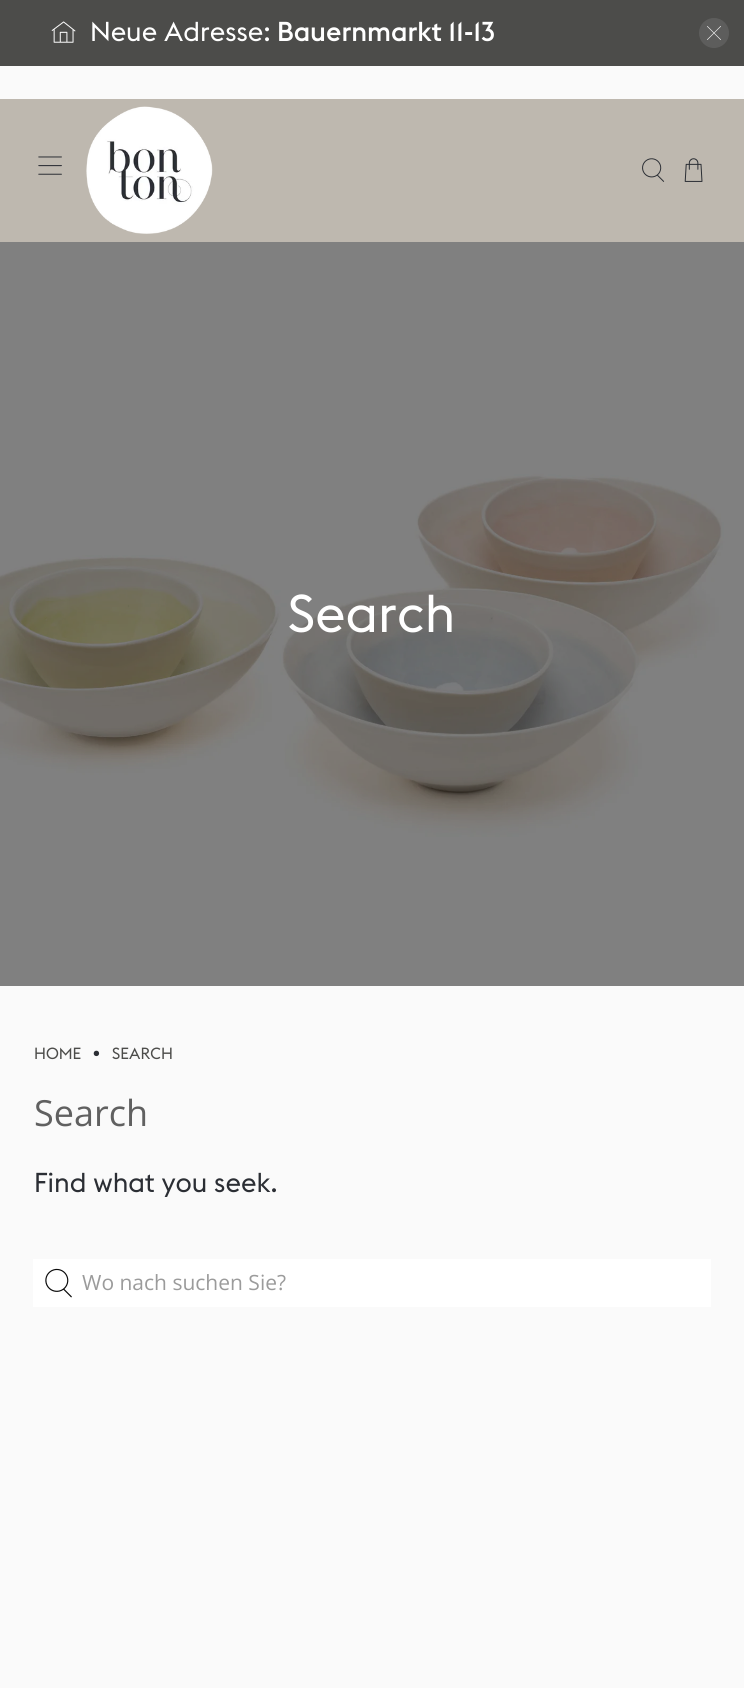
#include <cairo.h>
#include <math.h>
#include <stddef.h>


static void set_color(cairo_t *cr, unsigned color) {
    cairo_set_source_rgb(cr, (color >> 16) / 255.0, (color >> 8 & 255) / 255.0, (color & 255) / 255.0);
}

static void draw_text(cairo_t *cr, double x, double y, const char *s, const char *family, double size, int italic, int bold, unsigned color) {
    cairo_select_font_face(cr, family, italic ? CAIRO_FONT_SLANT_ITALIC : CAIRO_FONT_SLANT_NORMAL,
        bold ? CAIRO_FONT_WEIGHT_BOLD : CAIRO_FONT_WEIGHT_NORMAL);
    cairo_set_font_size(cr, size);
    set_color(cr, color);
    cairo_move_to(cr, x, y);
    cairo_show_text(cr, s);
}

static void fill_rect(cairo_t *cr, double x, double y, double w, double h, unsigned color) {
    set_color(cr, color);
    cairo_rectangle(cr, x, y, w, h);
    cairo_fill(cr);
}

static void draw_image(cairo_t *cr, const char *path, double x, double y, double w, double h) {
    cairo_surface_t *image = cairo_image_surface_create_from_png(path);
    cairo_save(cr);
    cairo_set_source_surface(cr, image, x, y);
    cairo_rectangle(cr, x, y, w, h);
    cairo_fill(cr);
    cairo_restore(cr);
    cairo_surface_destroy(image);
}

int main(void) {
    cairo_surface_t *surface = cairo_image_surface_create(CAIRO_FORMAT_RGB24, 744, 1688);
    cairo_t *cr = cairo_create(surface);
    cairo_font_options_t *options = cairo_font_options_create();
    cairo_font_options_set_hint_metrics(options, CAIRO_HINT_METRICS_OFF);
    cairo_font_options_set_hint_style(options, CAIRO_HINT_STYLE_NONE);
    cairo_set_font_options(cr, options);
    cairo_set_miter_limit(cr, 4);
    set_color(cr, 0xFAFAFA);
    cairo_paint(cr);
    fill_rect(cr, 0, 0, 744, 66, 0x4C4C4A);
    draw_image(cr, "assets/img1.png", 51, 21, 25, 22);
    draw_text(cr, 90, 41, "Neue Adresse:", "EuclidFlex", 27, 0, 0, 0xFFFFFF);
    draw_text(cr, 277, 41, "Bauernmarkt 11-13", "EuclidFlex Medium", 27, 0, 0, 0xFFFFFF);
    set_color(cr, 0x5D5D5C);
    cairo_new_path(cr);
    cairo_arc(cr, 714, 33, 15, 0, 2 * M_PI);
    cairo_fill(cr);
    draw_image(cr, "assets/img2.png", 707, 26, 14, 14);
    fill_rect(cr, 0, 99, 744, 143, 0xBEB8AF);
    draw_image(cr, "assets/img3.png", 38, 156, 24, 19);
    draw_image(cr, "assets/img4.png", 86, 106, 127, 128);
    draw_image(cr, "assets/img5.png", 642, 158, 23, 24);
    draw_image(cr, "assets/img6.png", 684, 158, 19, 24);
    draw_image(cr, "assets/img7.png", 0, 242, 744, 744);
    draw_text(cr, 288, 632, "Search", "EuclidFlex", 52.5, 0, 0, 0xFFFFFF);
    draw_text(cr, 34, 1059, "HOME", "EuclidFlex", 16, 0, 0, 0x4C4C4A);
    set_color(cr, 0x2B2E34);
    cairo_new_path(cr);
    cairo_arc(cr, 96.4, 1053.4, 2.7, 0, 2 * M_PI);
    cairo_fill(cr);
    draw_text(cr, 112, 1059, "SEARCH", "EuclidFlex", 16, 0, 0, 0x4C4C4A);
    draw_text(cr, 34, 1126, "Search", "Open Sans", 36, 0, 0, 0x606060);
    draw_text(cr, 34, 1192, "Find what you seek.", "EuclidFlex", 27, 0, 0, 0x2B2E34);
    fill_rect(cr, 33, 1259, 678, 48, 0xFFFFFF);
    draw_image(cr, "assets/img8.png", 45, 1268, 27, 30);
    draw_text(cr, 82, 1290, "Wo nach suchen Sie?", "Open Sans", 21, 0, 0, 0x9B9B9B);
    cairo_surface_write_to_png(surface, "output.png");
    cairo_font_options_destroy(options);
    cairo_destroy(cr);
    cairo_surface_destroy(surface);
    return 0;
}
